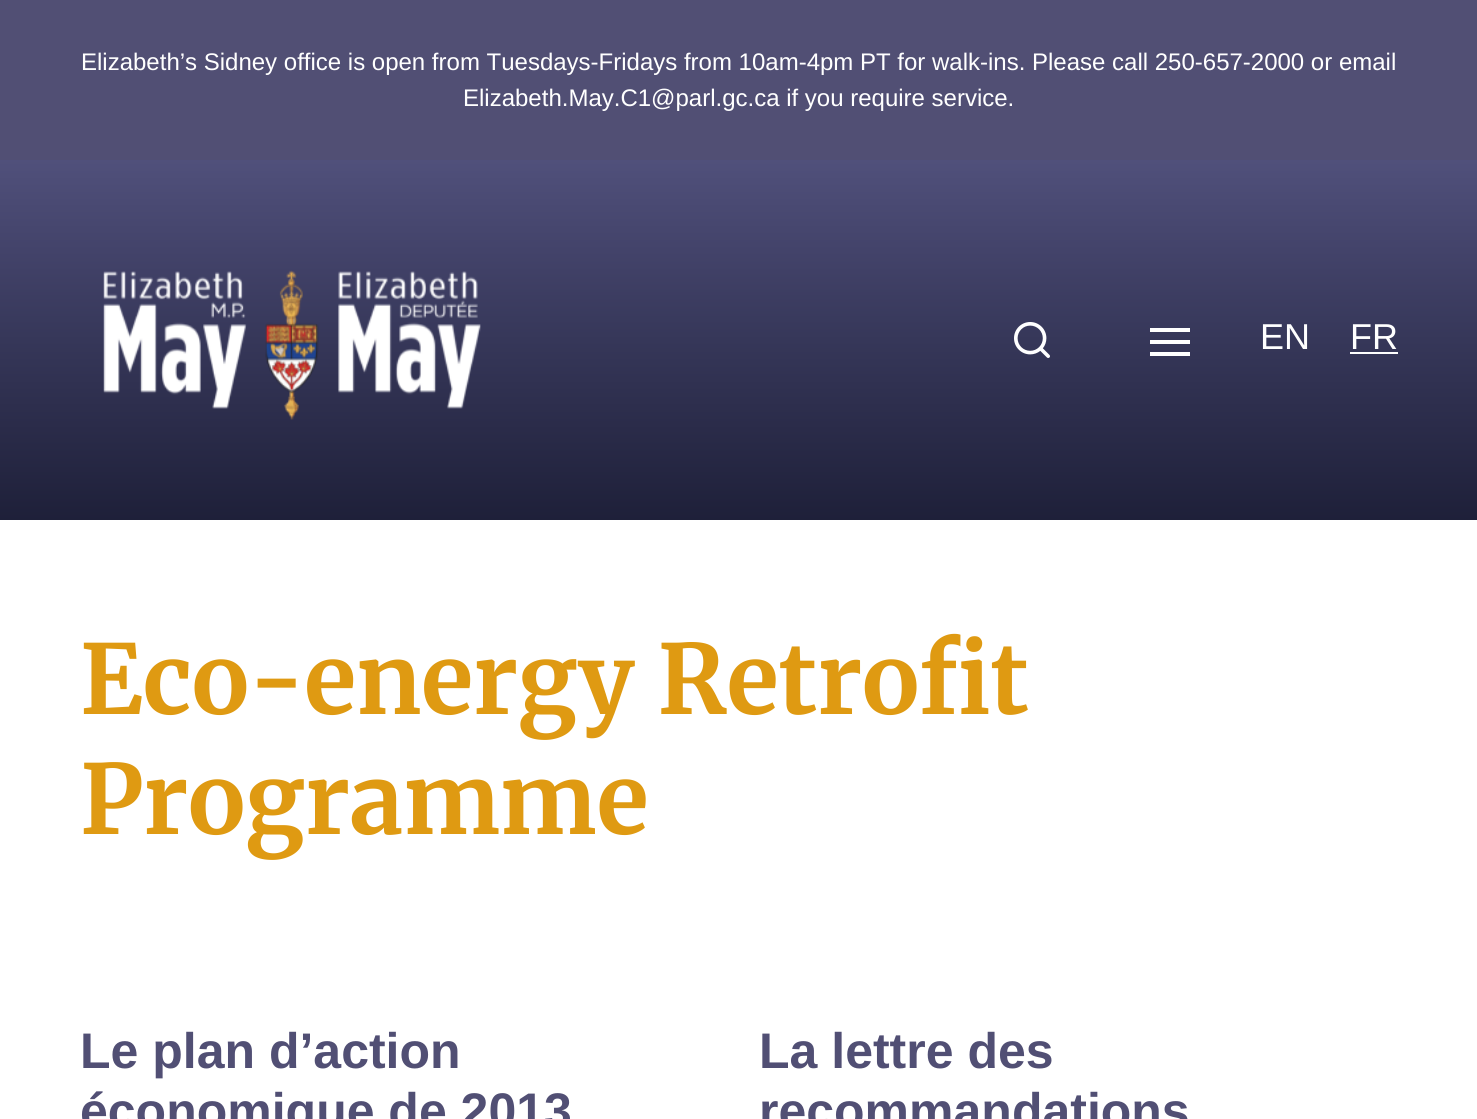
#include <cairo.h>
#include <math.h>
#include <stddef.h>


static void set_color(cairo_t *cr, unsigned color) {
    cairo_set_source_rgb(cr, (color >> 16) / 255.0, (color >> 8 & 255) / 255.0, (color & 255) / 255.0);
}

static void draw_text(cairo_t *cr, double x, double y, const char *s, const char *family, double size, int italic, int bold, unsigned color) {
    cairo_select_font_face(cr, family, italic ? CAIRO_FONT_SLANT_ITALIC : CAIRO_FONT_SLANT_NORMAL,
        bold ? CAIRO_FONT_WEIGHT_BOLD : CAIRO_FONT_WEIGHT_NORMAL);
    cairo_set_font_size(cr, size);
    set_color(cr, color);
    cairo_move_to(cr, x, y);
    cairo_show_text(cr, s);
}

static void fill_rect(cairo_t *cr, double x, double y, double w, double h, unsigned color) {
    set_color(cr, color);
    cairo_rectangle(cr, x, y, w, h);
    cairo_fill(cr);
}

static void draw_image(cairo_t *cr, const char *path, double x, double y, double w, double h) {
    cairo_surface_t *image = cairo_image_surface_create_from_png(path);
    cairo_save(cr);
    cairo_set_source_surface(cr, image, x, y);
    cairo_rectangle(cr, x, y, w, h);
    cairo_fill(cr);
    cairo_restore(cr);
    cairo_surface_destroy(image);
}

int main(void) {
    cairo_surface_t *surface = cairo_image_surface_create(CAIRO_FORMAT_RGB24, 1477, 1119);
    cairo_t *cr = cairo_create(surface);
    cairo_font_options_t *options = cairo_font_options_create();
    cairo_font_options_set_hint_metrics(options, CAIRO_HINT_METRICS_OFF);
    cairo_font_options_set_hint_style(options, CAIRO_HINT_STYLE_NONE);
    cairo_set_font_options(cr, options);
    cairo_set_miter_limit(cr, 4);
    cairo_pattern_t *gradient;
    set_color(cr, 0xFFFFFF);
    cairo_paint(cr);
    fill_rect(cr, 0, 0, 1477, 160, 0x514F74);
    draw_text(cr, 81, 70, "Elizabeth’s Sidney office is open from Tuesdays-Fridays from 10am-4pm PT for walk-ins. Please call 250-657-2000 or email", "Liberation Sans", 24, 0, 0, 0xFFFFFF);
    draw_text(cr, 463, 106, "Elizabeth.May.C1@parl.gc.ca if you require service.", "Liberation Sans", 24, 0, 0, 0xFFFFFF);
    gradient = cairo_pattern_create_linear(739, 160, 739, 520);
    cairo_pattern_add_color_stop_rgba(gradient, 0, 0.314, 0.314, 0.482, 1);
    cairo_pattern_add_color_stop_rgba(gradient, 0.25, 0.263, 0.263, 0.416, 1);
    cairo_pattern_add_color_stop_rgba(gradient, 0.5, 0.212, 0.216, 0.349, 1);
    cairo_pattern_add_color_stop_rgba(gradient, 0.75, 0.165, 0.169, 0.286, 1);
    cairo_pattern_add_color_stop_rgba(gradient, 1, 0.118, 0.125, 0.224, 1);
    cairo_set_source(cr, gradient);
    cairo_pattern_destroy(gradient);
    cairo_rectangle(cr, 0, 160, 1477, 360);
    cairo_fill(cr);
    draw_image(cr, "assets/img1.png", 103, 270, 378, 150);
    draw_image(cr, "assets/img2.png", 1014, 322, 36, 36);
    fill_rect(cr, 1150, 328, 40, 4, 0xFFFFFF);
    fill_rect(cr, 1150, 340, 40, 4, 0xFFFFFF);
    fill_rect(cr, 1150, 352, 40, 4, 0xFFFFFF);
    draw_text(cr, 1260, 349, "EN", "Liberation Sans", 36, 0, 0, 0xFFFFFF);
    draw_text(cr, 1350, 349, "FR", "Liberation Sans", 36, 0, 0, 0xFFFFFF);
    fill_rect(cr, 1350, 352, 48, 2, 0xFFFFFF);
    draw_text(cr, 80, 714, "Eco-energy Retrofit", "Merriweather", 96, 0, 1, 0xDF9A12);
    draw_text(cr, 80, 834, "Programme", "Merriweather", 96, 0, 1, 0xDF9A12);
    draw_text(cr, 80, 1068, "Le plan d’action", "Liberation Sans", 50, 0, 1, 0x514F74);
    draw_text(cr, 80, 1128, "économique de 2013", "Liberation Sans", 50, 0, 1, 0x514F74);
    draw_text(cr, 759, 1068, "La lettre des", "Liberation Sans", 50, 0, 1, 0x514F74);
    draw_text(cr, 759, 1128, "recommandations", "Liberation Sans", 50, 0, 1, 0x514F74);
    cairo_surface_write_to_png(surface, "output.png");
    cairo_font_options_destroy(options);
    cairo_destroy(cr);
    cairo_surface_destroy(surface);
    return 0;
}
